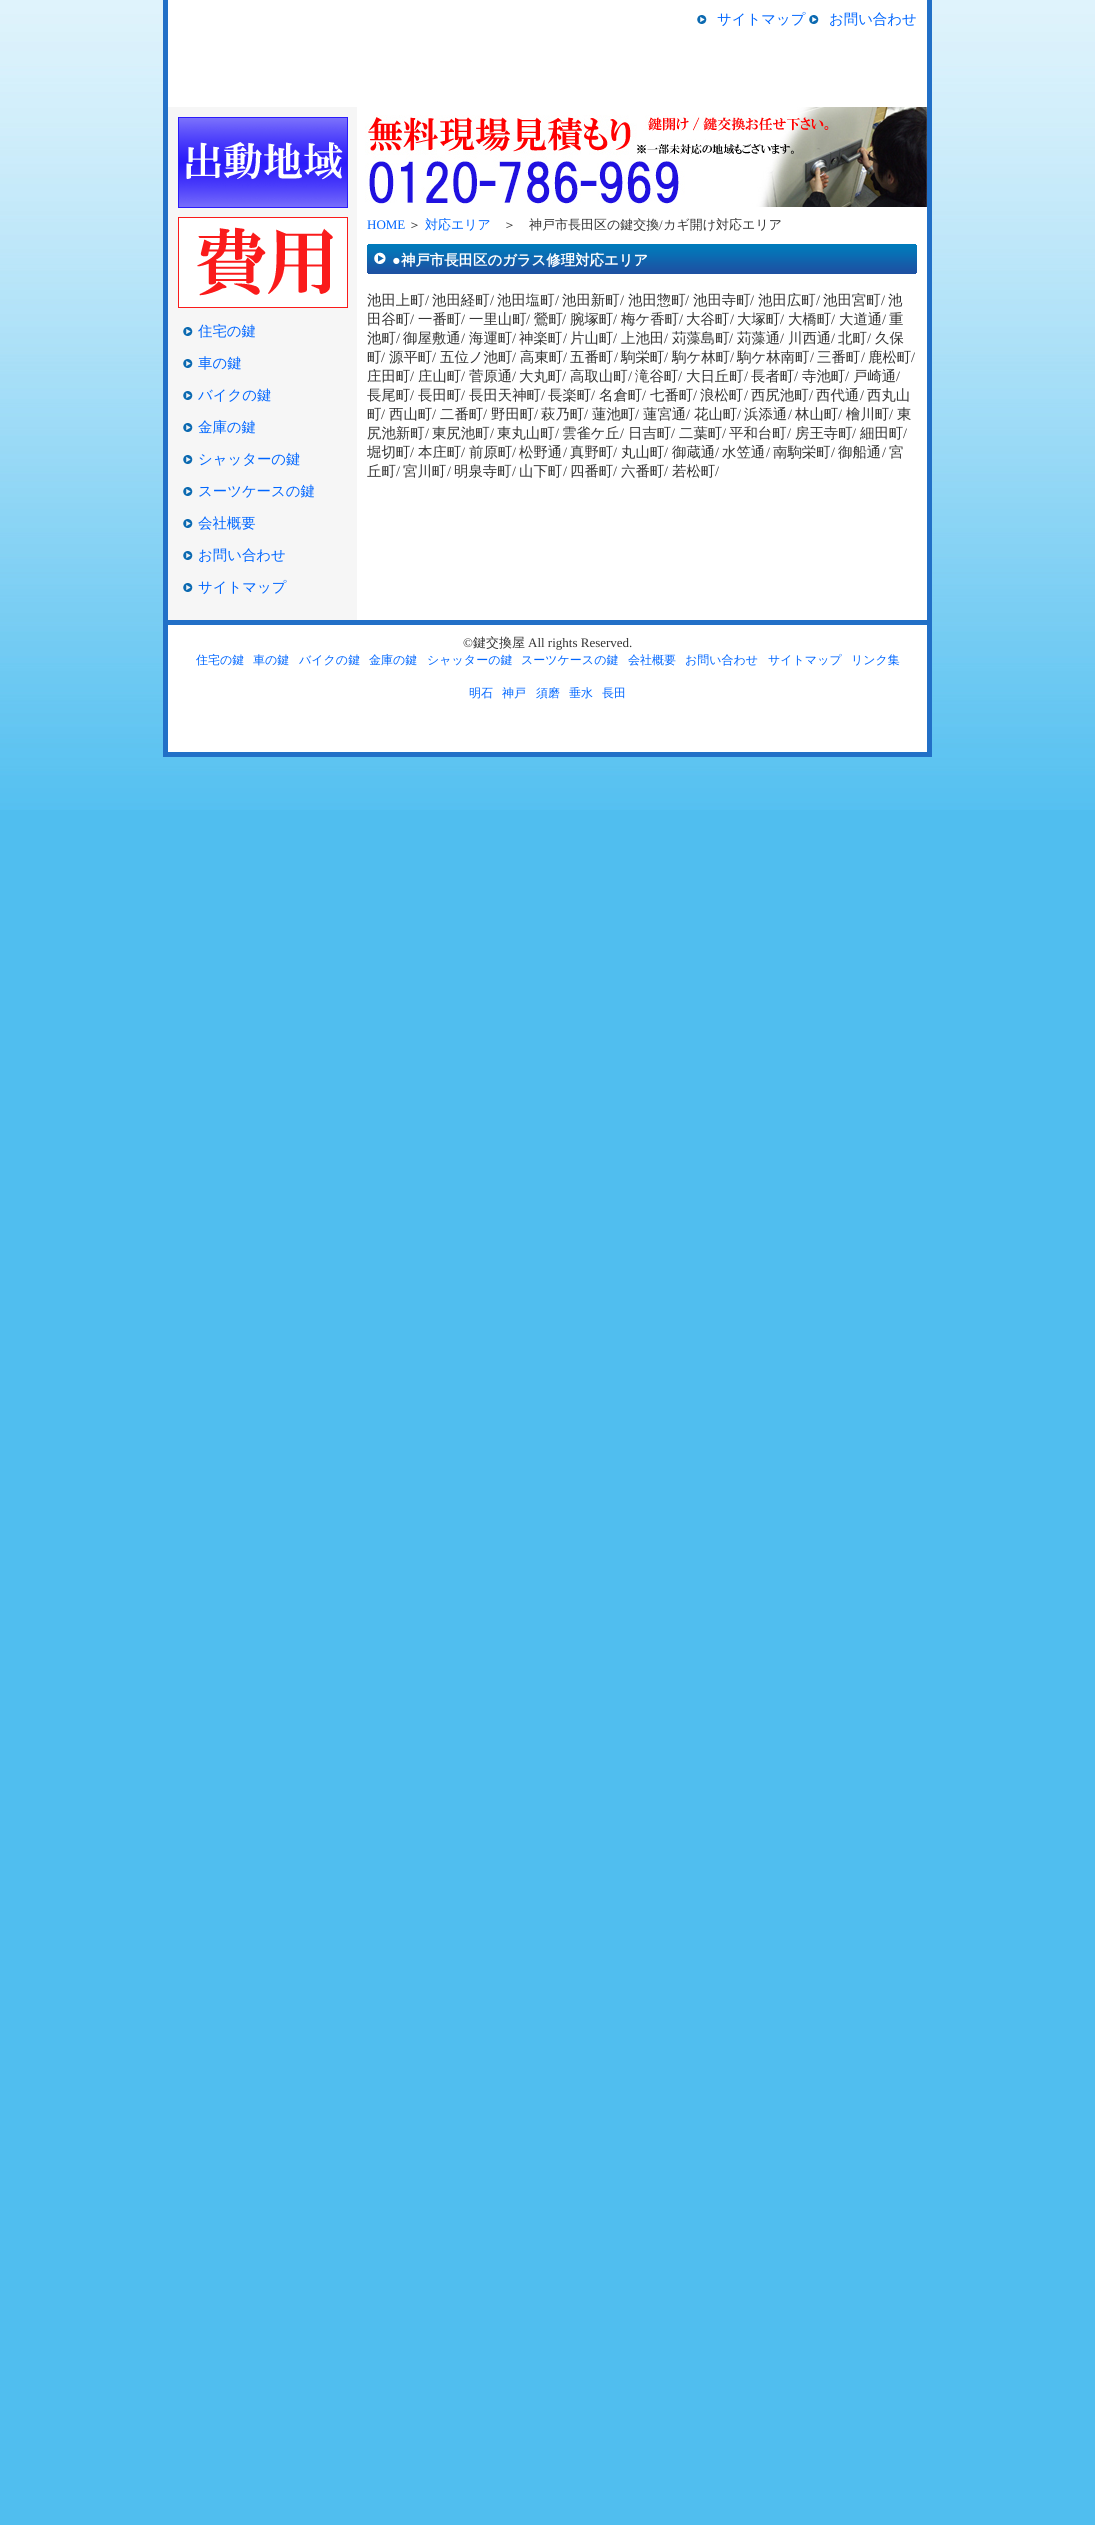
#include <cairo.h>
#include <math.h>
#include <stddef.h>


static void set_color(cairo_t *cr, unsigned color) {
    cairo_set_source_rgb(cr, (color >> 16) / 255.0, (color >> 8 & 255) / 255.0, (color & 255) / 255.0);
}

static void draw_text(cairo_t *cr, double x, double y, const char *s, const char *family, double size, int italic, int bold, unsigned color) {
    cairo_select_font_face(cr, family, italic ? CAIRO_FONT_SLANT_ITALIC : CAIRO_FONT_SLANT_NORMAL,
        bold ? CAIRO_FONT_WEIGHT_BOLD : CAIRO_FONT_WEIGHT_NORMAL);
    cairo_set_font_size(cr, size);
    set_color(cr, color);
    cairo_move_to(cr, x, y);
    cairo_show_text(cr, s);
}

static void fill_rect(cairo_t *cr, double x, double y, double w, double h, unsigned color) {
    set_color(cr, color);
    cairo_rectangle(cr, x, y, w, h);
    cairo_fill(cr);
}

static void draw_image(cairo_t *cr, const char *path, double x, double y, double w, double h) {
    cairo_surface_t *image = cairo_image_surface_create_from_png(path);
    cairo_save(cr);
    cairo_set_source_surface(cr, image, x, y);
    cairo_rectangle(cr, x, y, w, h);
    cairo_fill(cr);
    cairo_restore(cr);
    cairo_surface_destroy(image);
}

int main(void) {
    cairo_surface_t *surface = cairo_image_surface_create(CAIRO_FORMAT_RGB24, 1095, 2525);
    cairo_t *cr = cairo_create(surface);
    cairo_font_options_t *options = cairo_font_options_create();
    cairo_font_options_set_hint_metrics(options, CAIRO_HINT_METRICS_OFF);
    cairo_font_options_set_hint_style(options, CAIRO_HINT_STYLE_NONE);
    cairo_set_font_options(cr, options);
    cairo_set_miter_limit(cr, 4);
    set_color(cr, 0x50BEEF);
    cairo_paint(cr);
    draw_image(cr, "assets/img1.png", 0, 0, 1095, 810);
    fill_rect(cr, 168, 0, 759, 752, 0xFFFFFF);
    fill_rect(cr, 927, 0, 5, 757, 0x2270C7);
    fill_rect(cr, 163, 752, 769, 5, 0x2270C7);
    fill_rect(cr, 163, 0, 5, 757, 0x2270C7);
    draw_image(cr, "assets/img2.png", 697, 15, 10, 9);
    draw_text(cr, 717, 24, "サイトマップ", "WenQuanYi Zen Hei Medium", 14.4, 0, 0, 0x0066FF);
    draw_image(cr, "assets/img2.png", 809, 15, 10, 9);
    draw_text(cr, 829, 24, "お問い合わせ", "WenQuanYi Zen Hei Medium", 14.4, 0, 0, 0x0066FF);
    fill_rect(cr, 168, 107, 189, 513, 0xF6F6F6);
    draw_image(cr, "assets/img3.png", 178, 117, 170, 91);
    draw_image(cr, "assets/img4.png", 178, 217, 170, 91);
    draw_image(cr, "assets/img5.png", 183, 327, 10, 9);
    draw_text(cr, 198, 336, "住宅の鍵", "WenQuanYi Zen Hei Medium", 14.4, 0, 0, 0x0066FF);
    draw_image(cr, "assets/img5.png", 183, 359, 10, 9);
    draw_text(cr, 198, 368, "車の鍵", "WenQuanYi Zen Hei Medium", 14.4, 0, 0, 0x0066FF);
    draw_image(cr, "assets/img5.png", 183, 391, 10, 9);
    draw_text(cr, 198, 400, "バイクの鍵", "WenQuanYi Zen Hei Medium", 14.4, 0, 0, 0x0066FF);
    draw_image(cr, "assets/img5.png", 183, 423, 10, 9);
    draw_text(cr, 198, 432, "金庫の鍵", "WenQuanYi Zen Hei Medium", 14.4, 0, 0, 0x0066FF);
    draw_image(cr, "assets/img5.png", 183, 455, 10, 9);
    draw_text(cr, 198, 464, "シャッターの鍵", "WenQuanYi Zen Hei Medium", 14.4, 0, 0, 0x0066FF);
    draw_image(cr, "assets/img5.png", 183, 487, 10, 9);
    draw_text(cr, 198, 496, "スーツケースの鍵", "WenQuanYi Zen Hei Medium", 14.4, 0, 0, 0x0066FF);
    draw_image(cr, "assets/img5.png", 183, 519, 10, 9);
    draw_text(cr, 198, 528, "会社概要", "WenQuanYi Zen Hei Medium", 14.4, 0, 0, 0x0066FF);
    draw_image(cr, "assets/img5.png", 183, 551, 10, 9);
    draw_text(cr, 198, 560, "お問い合わせ", "WenQuanYi Zen Hei Medium", 14.4, 0, 0, 0x0066FF);
    draw_image(cr, "assets/img5.png", 183, 583, 10, 9);
    draw_text(cr, 198, 592, "サイトマップ", "WenQuanYi Zen Hei Medium", 14.4, 0, 0, 0x0066FF);
    draw_image(cr, "assets/img6.png", 365, 107, 562, 100);
    draw_text(cr, 367, 229, "HOME", "Liberation Serif", 13, 0, 0, 0x0066FF);
    draw_text(cr, 425, 229, "対応エリア", "WenQuanYi Zen Hei Medium", 13, 0, 0, 0x0066FF);
    draw_text(cr, 503, 229, "＞　神戸市長田区の鍵交換 カギ開け対応エリア", "WenQuanYi Zen Hei Medium", 13, 0, 0, 0x333333);
    draw_text(cr, 408, 229, "＞", "WenQuanYi Zen Hei Medium", 13, 0, 0, 0x333333);
    draw_text(cr, 659, 229, "/", "Liberation Serif", 13, 0, 0, 0x333333);
    draw_image(cr, "assets/img7.png", 367, 244, 550, 30);
    draw_text(cr, 392, 265, "●", "Liberation Serif", 14.4, 0, 1, 0xFFFFFF);
    draw_text(cr, 401, 265, "神戸市長田区のガラス修理対応エリア", "WenQuanYi Zen Hei", 14.4, 0, 1, 0xFFFFFF);
    draw_text(cr, 367, 305, "池田上町", "WenQuanYi Zen Hei Medium", 14.4, 0, 0, 0x333333);
    draw_text(cr, 425, 305, "/", "Liberation Serif", 14.4, 0, 0, 0x333333);
    draw_text(cr, 432, 305, "池田経町", "WenQuanYi Zen Hei Medium", 14.4, 0, 0, 0x333333);
    draw_text(cr, 490, 305, "/", "Liberation Serif", 14.4, 0, 0, 0x333333);
    draw_text(cr, 497, 305, "池田塩町", "WenQuanYi Zen Hei Medium", 14.4, 0, 0, 0x333333);
    draw_text(cr, 555, 305, "/", "Liberation Serif", 14.4, 0, 0, 0x333333);
    draw_text(cr, 562, 305, "池田新町", "WenQuanYi Zen Hei Medium", 14.4, 0, 0, 0x333333);
    draw_text(cr, 620, 305, "/", "Liberation Serif", 14.4, 0, 0, 0x333333);
    draw_text(cr, 628, 305, "池田惣町", "WenQuanYi Zen Hei Medium", 14.4, 0, 0, 0x333333);
    draw_text(cr, 685, 305, "/", "Liberation Serif", 14.4, 0, 0, 0x333333);
    draw_text(cr, 693, 305, "池田寺町", "WenQuanYi Zen Hei Medium", 14.4, 0, 0, 0x333333);
    draw_text(cr, 750, 305, "/", "Liberation Serif", 14.4, 0, 0, 0x333333);
    draw_text(cr, 758, 305, "池田広町", "WenQuanYi Zen Hei Medium", 14.4, 0, 0, 0x333333);
    draw_text(cr, 816, 305, "/", "Liberation Serif", 14.4, 0, 0, 0x333333);
    draw_text(cr, 823, 305, "池田宮町", "WenQuanYi Zen Hei Medium", 14.4, 0, 0, 0x333333);
    draw_text(cr, 881, 305, "/", "Liberation Serif", 14.4, 0, 0, 0x333333);
    draw_text(cr, 888, 305, "池", "WenQuanYi Zen Hei Medium", 14.4, 0, 0, 0x333333);
    draw_text(cr, 367, 324, "田谷町", "WenQuanYi Zen Hei Medium", 14.4, 0, 0, 0x333333);
    draw_text(cr, 410, 324, "/", "Liberation Serif", 14.4, 0, 0, 0x333333);
    draw_text(cr, 418, 324, "一番町", "WenQuanYi Zen Hei Medium", 14.4, 0, 0, 0x333333);
    draw_text(cr, 461, 324, "/", "Liberation Serif", 14.4, 0, 0, 0x333333);
    draw_text(cr, 469, 324, "一里山町", "WenQuanYi Zen Hei Medium", 14.4, 0, 0, 0x333333);
    draw_text(cr, 526, 324, "/", "Liberation Serif", 14.4, 0, 0, 0x333333);
    draw_text(cr, 534, 324, "鶯町", "WenQuanYi Zen Hei Medium", 14.4, 0, 0, 0x333333);
    draw_text(cr, 562, 324, "/", "Liberation Serif", 14.4, 0, 0, 0x333333);
    draw_text(cr, 570, 324, "腕塚町", "WenQuanYi Zen Hei Medium", 14.4, 0, 0, 0x333333);
    draw_text(cr, 613, 324, "/", "Liberation Serif", 14.4, 0, 0, 0x333333);
    draw_text(cr, 621, 324, "梅ケ香町", "WenQuanYi Zen Hei Medium", 14.4, 0, 0, 0x333333);
    draw_text(cr, 679, 324, "/", "Liberation Serif", 14.4, 0, 0, 0x333333);
    draw_text(cr, 686, 324, "大谷町", "WenQuanYi Zen Hei Medium", 14.4, 0, 0, 0x333333);
    draw_text(cr, 730, 324, "/", "Liberation Serif", 14.4, 0, 0, 0x333333);
    draw_text(cr, 737, 324, "大塚町", "WenQuanYi Zen Hei Medium", 14.4, 0, 0, 0x333333);
    draw_text(cr, 780, 324, "/", "Liberation Serif", 14.4, 0, 0, 0x333333);
    draw_text(cr, 788, 324, "大橋町", "WenQuanYi Zen Hei Medium", 14.4, 0, 0, 0x333333);
    draw_text(cr, 831, 324, "/", "Liberation Serif", 14.4, 0, 0, 0x333333);
    draw_text(cr, 839, 324, "大道通", "WenQuanYi Zen Hei Medium", 14.4, 0, 0, 0x333333);
    draw_text(cr, 882, 324, "/", "Liberation Serif", 14.4, 0, 0, 0x333333);
    draw_text(cr, 889, 324, "重", "WenQuanYi Zen Hei Medium", 14.4, 0, 0, 0x333333);
    draw_text(cr, 367, 343, "池町", "WenQuanYi Zen Hei Medium", 14.4, 0, 0, 0x333333);
    draw_text(cr, 396, 343, "/", "Liberation Serif", 14.4, 0, 0, 0x333333);
    draw_text(cr, 403, 343, "御屋敷通", "WenQuanYi Zen Hei Medium", 14.4, 0, 0, 0x333333);
    draw_text(cr, 461, 343, "/", "Liberation Serif", 14.4, 0, 0, 0x333333);
    draw_text(cr, 469, 343, "海運町", "WenQuanYi Zen Hei Medium", 14.4, 0, 0, 0x333333);
    draw_text(cr, 512, 343, "/", "Liberation Serif", 14.4, 0, 0, 0x333333);
    draw_text(cr, 519, 343, "神楽町", "WenQuanYi Zen Hei Medium", 14.4, 0, 0, 0x333333);
    draw_text(cr, 563, 343, "/", "Liberation Serif", 14.4, 0, 0, 0x333333);
    draw_text(cr, 570, 343, "片山町", "WenQuanYi Zen Hei Medium", 14.4, 0, 0, 0x333333);
    draw_text(cr, 613, 343, "/", "Liberation Serif", 14.4, 0, 0, 0x333333);
    draw_text(cr, 621, 343, "上池田", "WenQuanYi Zen Hei Medium", 14.4, 0, 0, 0x333333);
    draw_text(cr, 664, 343, "/", "Liberation Serif", 14.4, 0, 0, 0x333333);
    draw_text(cr, 672, 343, "苅藻島町", "WenQuanYi Zen Hei Medium", 14.4, 0, 0, 0x333333);
    draw_text(cr, 729, 343, "/", "Liberation Serif", 14.4, 0, 0, 0x333333);
    draw_text(cr, 737, 343, "苅藻通", "WenQuanYi Zen Hei Medium", 14.4, 0, 0, 0x333333);
    draw_text(cr, 780, 343, "/", "Liberation Serif", 14.4, 0, 0, 0x333333);
    draw_text(cr, 788, 343, "川西通", "WenQuanYi Zen Hei Medium", 14.4, 0, 0, 0x333333);
    draw_text(cr, 831, 343, "/", "Liberation Serif", 14.4, 0, 0, 0x333333);
    draw_text(cr, 838, 343, "北町", "WenQuanYi Zen Hei Medium", 14.4, 0, 0, 0x333333);
    draw_text(cr, 867, 343, "/", "Liberation Serif", 14.4, 0, 0, 0x333333);
    draw_text(cr, 875, 343, "久保", "WenQuanYi Zen Hei Medium", 14.4, 0, 0, 0x333333);
    draw_text(cr, 367, 362, "町", "WenQuanYi Zen Hei Medium", 14.4, 0, 0, 0x333333);
    draw_text(cr, 381, 362, "/", "Liberation Serif", 14.4, 0, 0, 0x333333);
    draw_text(cr, 389, 362, "源平町", "WenQuanYi Zen Hei Medium", 14.4, 0, 0, 0x333333);
    draw_text(cr, 432, 362, "/", "Liberation Serif", 14.4, 0, 0, 0x333333);
    draw_text(cr, 440, 362, "五位ノ池町", "WenQuanYi Zen Hei Medium", 14.4, 0, 0, 0x333333);
    draw_text(cr, 512, 362, "/", "Liberation Serif", 14.4, 0, 0, 0x333333);
    draw_text(cr, 520, 362, "高東町", "WenQuanYi Zen Hei Medium", 14.4, 0, 0, 0x333333);
    draw_text(cr, 563, 362, "/", "Liberation Serif", 14.4, 0, 0, 0x333333);
    draw_text(cr, 570, 362, "五番町", "WenQuanYi Zen Hei Medium", 14.4, 0, 0, 0x333333);
    draw_text(cr, 614, 362, "/", "Liberation Serif", 14.4, 0, 0, 0x333333);
    draw_text(cr, 621, 362, "駒栄町", "WenQuanYi Zen Hei Medium", 14.4, 0, 0, 0x333333);
    draw_text(cr, 664, 362, "/", "Liberation Serif", 14.4, 0, 0, 0x333333);
    draw_text(cr, 672, 362, "駒ケ林町", "WenQuanYi Zen Hei Medium", 14.4, 0, 0, 0x333333);
    draw_text(cr, 730, 362, "/", "Liberation Serif", 14.4, 0, 0, 0x333333);
    draw_text(cr, 737, 362, "駒ケ林南町", "WenQuanYi Zen Hei Medium", 14.4, 0, 0, 0x333333);
    draw_text(cr, 810, 362, "/", "Liberation Serif", 14.4, 0, 0, 0x333333);
    draw_text(cr, 817, 362, "三番町", "WenQuanYi Zen Hei Medium", 14.4, 0, 0, 0x333333);
    draw_text(cr, 861, 362, "/", "Liberation Serif", 14.4, 0, 0, 0x333333);
    draw_text(cr, 868, 362, "鹿松町", "WenQuanYi Zen Hei Medium", 14.4, 0, 0, 0x333333);
    draw_text(cr, 911, 362, "/", "Liberation Serif", 14.4, 0, 0, 0x333333);
    draw_text(cr, 367, 381, "庄田町", "WenQuanYi Zen Hei Medium", 14.4, 0, 0, 0x333333);
    draw_text(cr, 410, 381, "/", "Liberation Serif", 14.4, 0, 0, 0x333333);
    draw_text(cr, 418, 381, "庄山町", "WenQuanYi Zen Hei Medium", 14.4, 0, 0, 0x333333);
    draw_text(cr, 461, 381, "/", "Liberation Serif", 14.4, 0, 0, 0x333333);
    draw_text(cr, 469, 381, "菅原通", "WenQuanYi Zen Hei Medium", 14.4, 0, 0, 0x333333);
    draw_text(cr, 512, 381, "/", "Liberation Serif", 14.4, 0, 0, 0x333333);
    draw_text(cr, 519, 381, "大丸町", "WenQuanYi Zen Hei Medium", 14.4, 0, 0, 0x333333);
    draw_text(cr, 562, 381, "/", "Liberation Serif", 14.4, 0, 0, 0x333333);
    draw_text(cr, 570, 381, "高取山町", "WenQuanYi Zen Hei Medium", 14.4, 0, 0, 0x333333);
    draw_text(cr, 628, 381, "/", "Liberation Serif", 14.4, 0, 0, 0x333333);
    draw_text(cr, 635, 381, "滝谷町", "WenQuanYi Zen Hei Medium", 14.4, 0, 0, 0x333333);
    draw_text(cr, 678, 381, "/", "Liberation Serif", 14.4, 0, 0, 0x333333);
    draw_text(cr, 686, 381, "大日丘町", "WenQuanYi Zen Hei Medium", 14.4, 0, 0, 0x333333);
    draw_text(cr, 744, 381, "/", "Liberation Serif", 14.4, 0, 0, 0x333333);
    draw_text(cr, 751, 381, "長者町", "WenQuanYi Zen Hei Medium", 14.4, 0, 0, 0x333333);
    draw_text(cr, 794, 381, "/", "Liberation Serif", 14.4, 0, 0, 0x333333);
    draw_text(cr, 802, 381, "寺池町", "WenQuanYi Zen Hei Medium", 14.4, 0, 0, 0x333333);
    draw_text(cr, 845, 381, "/", "Liberation Serif", 14.4, 0, 0, 0x333333);
    draw_text(cr, 853, 381, "戸崎通", "WenQuanYi Zen Hei Medium", 14.4, 0, 0, 0x333333);
    draw_text(cr, 896, 381, "/", "Liberation Serif", 14.4, 0, 0, 0x333333);
    draw_text(cr, 367, 400, "長尾町", "WenQuanYi Zen Hei Medium", 14.4, 0, 0, 0x333333);
    draw_text(cr, 410, 400, "/", "Liberation Serif", 14.4, 0, 0, 0x333333);
    draw_text(cr, 418, 400, "長田町", "WenQuanYi Zen Hei Medium", 14.4, 0, 0, 0x333333);
    draw_text(cr, 461, 400, "/", "Liberation Serif", 14.4, 0, 0, 0x333333);
    draw_text(cr, 469, 400, "長田天神町", "WenQuanYi Zen Hei Medium", 14.4, 0, 0, 0x333333);
    draw_text(cr, 541, 400, "/", "Liberation Serif", 14.4, 0, 0, 0x333333);
    draw_text(cr, 548, 400, "長楽町", "WenQuanYi Zen Hei Medium", 14.4, 0, 0, 0x333333);
    draw_text(cr, 591, 400, "/", "Liberation Serif", 14.4, 0, 0, 0x333333);
    draw_text(cr, 599, 400, "名倉町", "WenQuanYi Zen Hei Medium", 14.4, 0, 0, 0x333333);
    draw_text(cr, 642, 400, "/", "Liberation Serif", 14.4, 0, 0, 0x333333);
    draw_text(cr, 650, 400, "七番町", "WenQuanYi Zen Hei Medium", 14.4, 0, 0, 0x333333);
    draw_text(cr, 693, 400, "/", "Liberation Serif", 14.4, 0, 0, 0x333333);
    draw_text(cr, 700, 400, "浪松町", "WenQuanYi Zen Hei Medium", 14.4, 0, 0, 0x333333);
    draw_text(cr, 744, 400, "/", "Liberation Serif", 14.4, 0, 0, 0x333333);
    draw_text(cr, 751, 400, "西尻池町", "WenQuanYi Zen Hei Medium", 14.4, 0, 0, 0x333333);
    draw_text(cr, 809, 400, "/", "Liberation Serif", 14.4, 0, 0, 0x333333);
    draw_text(cr, 816, 400, "西代通", "WenQuanYi Zen Hei Medium", 14.4, 0, 0, 0x333333);
    draw_text(cr, 860, 400, "/", "Liberation Serif", 14.4, 0, 0, 0x333333);
    draw_text(cr, 867, 400, "西丸山", "WenQuanYi Zen Hei Medium", 14.4, 0, 0, 0x333333);
    draw_text(cr, 367, 419, "町", "WenQuanYi Zen Hei Medium", 14.4, 0, 0, 0x333333);
    draw_text(cr, 381, 419, "/", "Liberation Serif", 14.4, 0, 0, 0x333333);
    draw_text(cr, 389, 419, "西山町", "WenQuanYi Zen Hei Medium", 14.4, 0, 0, 0x333333);
    draw_text(cr, 432, 419, "/", "Liberation Serif", 14.4, 0, 0, 0x333333);
    draw_text(cr, 440, 419, "二番町", "WenQuanYi Zen Hei Medium", 14.4, 0, 0, 0x333333);
    draw_text(cr, 483, 419, "/", "Liberation Serif", 14.4, 0, 0, 0x333333);
    draw_text(cr, 491, 419, "野田町", "WenQuanYi Zen Hei Medium", 14.4, 0, 0, 0x333333);
    draw_text(cr, 534, 419, "/", "Liberation Serif", 14.4, 0, 0, 0x333333);
    draw_text(cr, 541, 419, "萩乃町", "WenQuanYi Zen Hei Medium", 14.4, 0, 0, 0x333333);
    draw_text(cr, 584, 419, "/", "Liberation Serif", 14.4, 0, 0, 0x333333);
    draw_text(cr, 592, 419, "蓮池町", "WenQuanYi Zen Hei Medium", 14.4, 0, 0, 0x333333);
    draw_text(cr, 635, 419, "/", "Liberation Serif", 14.4, 0, 0, 0x333333);
    draw_text(cr, 643, 419, "蓮宮通", "WenQuanYi Zen Hei Medium", 14.4, 0, 0, 0x333333);
    draw_text(cr, 686, 419, "/", "Liberation Serif", 14.4, 0, 0, 0x333333);
    draw_text(cr, 694, 419, "花山町", "WenQuanYi Zen Hei Medium", 14.4, 0, 0, 0x333333);
    draw_text(cr, 737, 419, "/", "Liberation Serif", 14.4, 0, 0, 0x333333);
    draw_text(cr, 744, 419, "浜添通", "WenQuanYi Zen Hei Medium", 14.4, 0, 0, 0x333333);
    draw_text(cr, 788, 419, "/", "Liberation Serif", 14.4, 0, 0, 0x333333);
    draw_text(cr, 795, 419, "林山町", "WenQuanYi Zen Hei Medium", 14.4, 0, 0, 0x333333);
    draw_text(cr, 838, 419, "/", "Liberation Serif", 14.4, 0, 0, 0x333333);
    draw_text(cr, 846, 419, "檜川町", "WenQuanYi Zen Hei Medium", 14.4, 0, 0, 0x333333);
    draw_text(cr, 889, 419, "/", "Liberation Serif", 14.4, 0, 0, 0x333333);
    draw_text(cr, 897, 419, "東", "WenQuanYi Zen Hei Medium", 14.4, 0, 0, 0x333333);
    draw_text(cr, 367, 438, "尻池新町", "WenQuanYi Zen Hei Medium", 14.4, 0, 0, 0x333333);
    draw_text(cr, 425, 438, "/", "Liberation Serif", 14.4, 0, 0, 0x333333);
    draw_text(cr, 432, 438, "東尻池町", "WenQuanYi Zen Hei Medium", 14.4, 0, 0, 0x333333);
    draw_text(cr, 490, 438, "/", "Liberation Serif", 14.4, 0, 0, 0x333333);
    draw_text(cr, 497, 438, "東丸山町", "WenQuanYi Zen Hei Medium", 14.4, 0, 0, 0x333333);
    draw_text(cr, 555, 438, "/", "Liberation Serif", 14.4, 0, 0, 0x333333);
    draw_text(cr, 562, 438, "雲雀ケ丘", "WenQuanYi Zen Hei Medium", 14.4, 0, 0, 0x333333);
    draw_text(cr, 620, 438, "/", "Liberation Serif", 14.4, 0, 0, 0x333333);
    draw_text(cr, 628, 438, "日吉町", "WenQuanYi Zen Hei Medium", 14.4, 0, 0, 0x333333);
    draw_text(cr, 671, 438, "/", "Liberation Serif", 14.4, 0, 0, 0x333333);
    draw_text(cr, 679, 438, "二葉町", "WenQuanYi Zen Hei Medium", 14.4, 0, 0, 0x333333);
    draw_text(cr, 722, 438, "/", "Liberation Serif", 14.4, 0, 0, 0x333333);
    draw_text(cr, 729, 438, "平和台町", "WenQuanYi Zen Hei Medium", 14.4, 0, 0, 0x333333);
    draw_text(cr, 787, 438, "/", "Liberation Serif", 14.4, 0, 0, 0x333333);
    draw_text(cr, 795, 438, "房王寺町", "WenQuanYi Zen Hei Medium", 14.4, 0, 0, 0x333333);
    draw_text(cr, 852, 438, "/", "Liberation Serif", 14.4, 0, 0, 0x333333);
    draw_text(cr, 860, 438, "細田町", "WenQuanYi Zen Hei Medium", 14.4, 0, 0, 0x333333);
    draw_text(cr, 903, 438, "/", "Liberation Serif", 14.4, 0, 0, 0x333333);
    draw_text(cr, 367, 457, "堀切町", "WenQuanYi Zen Hei Medium", 14.4, 0, 0, 0x333333);
    draw_text(cr, 410, 457, "/", "Liberation Serif", 14.4, 0, 0, 0x333333);
    draw_text(cr, 418, 457, "本庄町", "WenQuanYi Zen Hei Medium", 14.4, 0, 0, 0x333333);
    draw_text(cr, 461, 457, "/", "Liberation Serif", 14.4, 0, 0, 0x333333);
    draw_text(cr, 469, 457, "前原町", "WenQuanYi Zen Hei Medium", 14.4, 0, 0, 0x333333);
    draw_text(cr, 512, 457, "/", "Liberation Serif", 14.4, 0, 0, 0x333333);
    draw_text(cr, 519, 457, "松野通", "WenQuanYi Zen Hei Medium", 14.4, 0, 0, 0x333333);
    draw_text(cr, 563, 457, "/", "Liberation Serif", 14.4, 0, 0, 0x333333);
    draw_text(cr, 570, 457, "真野町", "WenQuanYi Zen Hei Medium", 14.4, 0, 0, 0x333333);
    draw_text(cr, 613, 457, "/", "Liberation Serif", 14.4, 0, 0, 0x333333);
    draw_text(cr, 621, 457, "丸山町", "WenQuanYi Zen Hei Medium", 14.4, 0, 0, 0x333333);
    draw_text(cr, 664, 457, "/", "Liberation Serif", 14.4, 0, 0, 0x333333);
    draw_text(cr, 672, 457, "御蔵通", "WenQuanYi Zen Hei Medium", 14.4, 0, 0, 0x333333);
    draw_text(cr, 715, 457, "/", "Liberation Serif", 14.4, 0, 0, 0x333333);
    draw_text(cr, 722, 457, "水笠通", "WenQuanYi Zen Hei Medium", 14.4, 0, 0, 0x333333);
    draw_text(cr, 766, 457, "/", "Liberation Serif", 14.4, 0, 0, 0x333333);
    draw_text(cr, 773, 457, "南駒栄町", "WenQuanYi Zen Hei Medium", 14.4, 0, 0, 0x333333);
    draw_text(cr, 831, 457, "/", "Liberation Serif", 14.4, 0, 0, 0x333333);
    draw_text(cr, 838, 457, "御船通", "WenQuanYi Zen Hei Medium", 14.4, 0, 0, 0x333333);
    draw_text(cr, 882, 457, "/", "Liberation Serif", 14.4, 0, 0, 0x333333);
    draw_text(cr, 889, 457, "宮", "WenQuanYi Zen Hei Medium", 14.4, 0, 0, 0x333333);
    draw_text(cr, 367, 476, "丘町", "WenQuanYi Zen Hei Medium", 14.4, 0, 0, 0x333333);
    draw_text(cr, 396, 476, "/", "Liberation Serif", 14.4, 0, 0, 0x333333);
    draw_text(cr, 403, 476, "宮川町", "WenQuanYi Zen Hei Medium", 14.4, 0, 0, 0x333333);
    draw_text(cr, 447, 476, "/", "Liberation Serif", 14.4, 0, 0, 0x333333);
    draw_text(cr, 454, 476, "明泉寺町", "WenQuanYi Zen Hei Medium", 14.4, 0, 0, 0x333333);
    draw_text(cr, 512, 476, "/", "Liberation Serif", 14.4, 0, 0, 0x333333);
    draw_text(cr, 519, 476, "山下町", "WenQuanYi Zen Hei Medium", 14.4, 0, 0, 0x333333);
    draw_text(cr, 563, 476, "/", "Liberation Serif", 14.4, 0, 0, 0x333333);
    draw_text(cr, 570, 476, "四番町", "WenQuanYi Zen Hei Medium", 14.4, 0, 0, 0x333333);
    draw_text(cr, 613, 476, "/", "Liberation Serif", 14.4, 0, 0, 0x333333);
    draw_text(cr, 621, 476, "六番町", "WenQuanYi Zen Hei Medium", 14.4, 0, 0, 0x333333);
    draw_text(cr, 664, 476, "/", "Liberation Serif", 14.4, 0, 0, 0x333333);
    draw_text(cr, 672, 476, "若松町", "WenQuanYi Zen Hei Medium", 14.4, 0, 0, 0x333333);
    draw_text(cr, 715, 476, "/", "Liberation Serif", 14.4, 0, 0, 0x333333);
    fill_rect(cr, 168, 620, 759, 5, 0x2270C7);
    draw_text(cr, 463, 647, "©", "Liberation Serif", 13, 0, 0, 0x333333);
    draw_text(cr, 473, 647, "鍵交換屋", "WenQuanYi Zen Hei Medium", 13, 0, 0, 0x333333);
    draw_text(cr, 528, 647, "All rights Reserved.", "Liberation Serif", 13, 0, 0, 0x333333);
    draw_text(cr, 196, 664, "住宅の鍵", "WenQuanYi Zen Hei Medium", 12, 0, 0, 0x0066FF);
    draw_text(cr, 253, 664, "車の鍵", "WenQuanYi Zen Hei Medium", 12, 0, 0, 0x0066FF);
    draw_text(cr, 299, 664, "バイクの鍵", "WenQuanYi Zen Hei Medium", 12, 0, 0, 0x0066FF);
    draw_text(cr, 369, 664, "金庫の鍵", "WenQuanYi Zen Hei Medium", 12, 0, 0, 0x0066FF);
    draw_text(cr, 427, 664, "シャッターの鍵", "WenQuanYi Zen Hei Medium", 12, 0, 0, 0x0066FF);
    draw_text(cr, 521, 664, "スーツケースの鍵", "WenQuanYi Zen Hei Medium", 12, 0, 0, 0x0066FF);
    draw_text(cr, 628, 664, "会社概要", "WenQuanYi Zen Hei Medium", 12, 0, 0, 0x0066FF);
    draw_text(cr, 685, 664, "お問い合わせ", "WenQuanYi Zen Hei Medium", 12, 0, 0, 0x0066FF);
    draw_text(cr, 768, 664, "サイトマップ", "WenQuanYi Zen Hei Medium", 12, 0, 0, 0x0066FF);
    draw_text(cr, 851, 664, "リンク集", "WenQuanYi Zen Hei Medium", 12, 0, 0, 0x0066FF);
    draw_text(cr, 469, 697, "明石", "WenQuanYi Zen Hei Medium", 12, 0, 0, 0x0066FF);
    draw_text(cr, 502, 697, "神戸", "WenQuanYi Zen Hei Medium", 12, 0, 0, 0x0066FF);
    draw_text(cr, 536, 697, "須磨", "WenQuanYi Zen Hei Medium", 12, 0, 0, 0x0066FF);
    draw_text(cr, 569, 697, "垂水", "WenQuanYi Zen Hei Medium", 12, 0, 0, 0x0066FF);
    draw_text(cr, 602, 697, "長田", "WenQuanYi Zen Hei Medium", 12, 0, 0, 0x0066FF);
    cairo_surface_write_to_png(surface, "output.png");
    cairo_font_options_destroy(options);
    cairo_destroy(cr);
    cairo_surface_destroy(surface);
    return 0;
}
